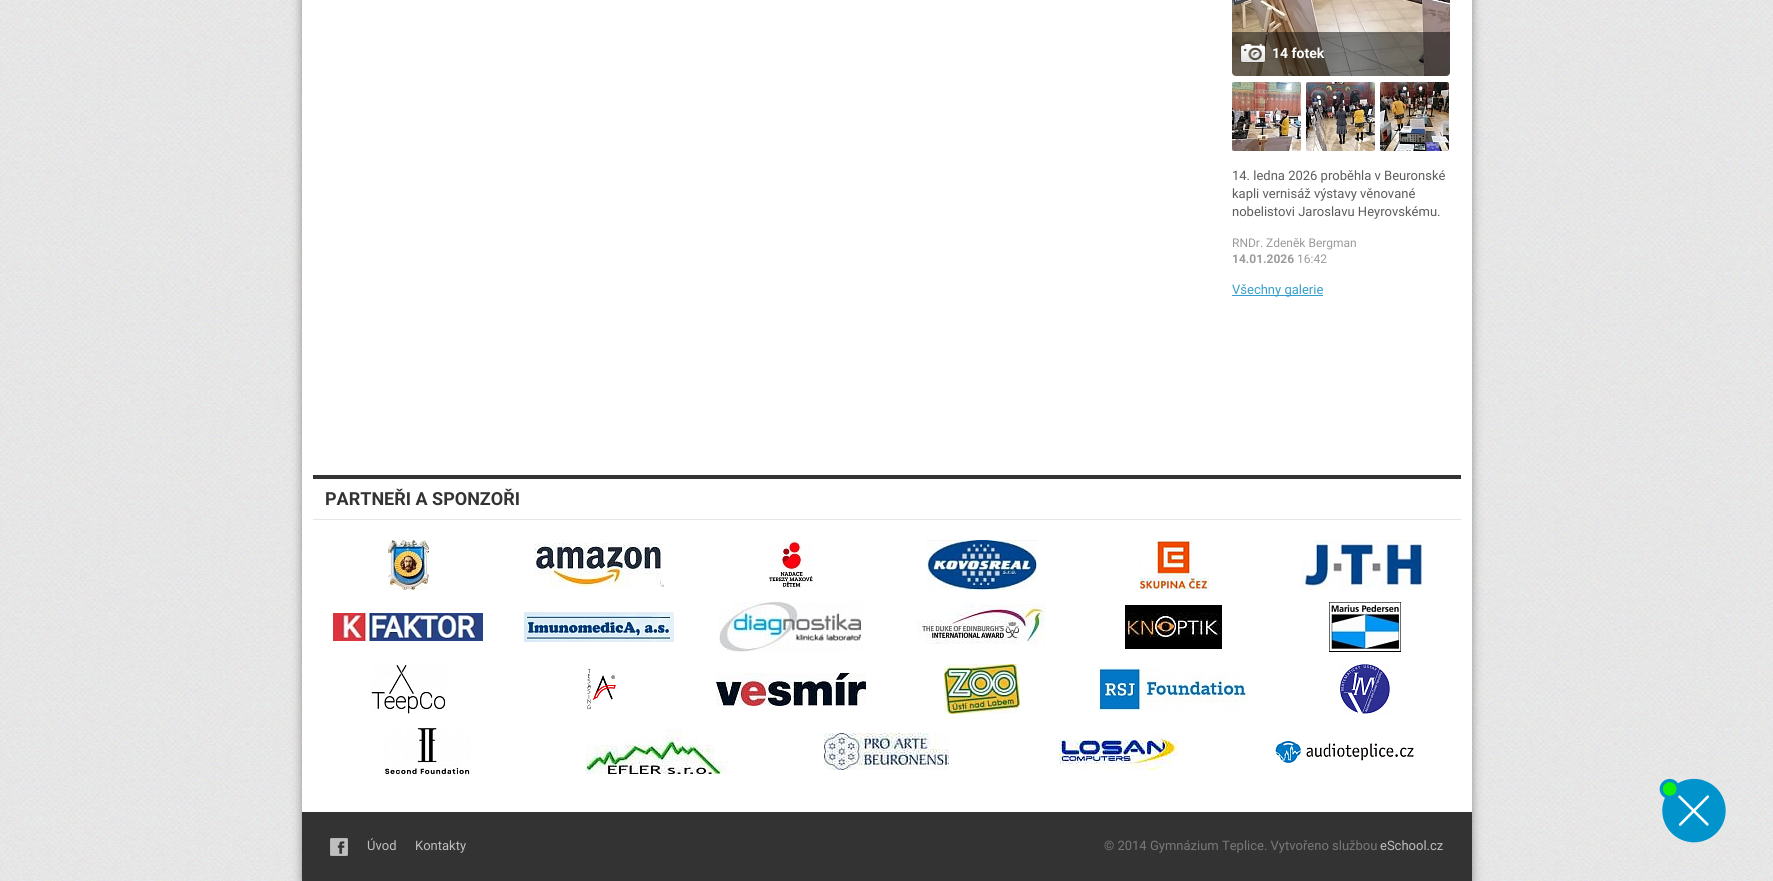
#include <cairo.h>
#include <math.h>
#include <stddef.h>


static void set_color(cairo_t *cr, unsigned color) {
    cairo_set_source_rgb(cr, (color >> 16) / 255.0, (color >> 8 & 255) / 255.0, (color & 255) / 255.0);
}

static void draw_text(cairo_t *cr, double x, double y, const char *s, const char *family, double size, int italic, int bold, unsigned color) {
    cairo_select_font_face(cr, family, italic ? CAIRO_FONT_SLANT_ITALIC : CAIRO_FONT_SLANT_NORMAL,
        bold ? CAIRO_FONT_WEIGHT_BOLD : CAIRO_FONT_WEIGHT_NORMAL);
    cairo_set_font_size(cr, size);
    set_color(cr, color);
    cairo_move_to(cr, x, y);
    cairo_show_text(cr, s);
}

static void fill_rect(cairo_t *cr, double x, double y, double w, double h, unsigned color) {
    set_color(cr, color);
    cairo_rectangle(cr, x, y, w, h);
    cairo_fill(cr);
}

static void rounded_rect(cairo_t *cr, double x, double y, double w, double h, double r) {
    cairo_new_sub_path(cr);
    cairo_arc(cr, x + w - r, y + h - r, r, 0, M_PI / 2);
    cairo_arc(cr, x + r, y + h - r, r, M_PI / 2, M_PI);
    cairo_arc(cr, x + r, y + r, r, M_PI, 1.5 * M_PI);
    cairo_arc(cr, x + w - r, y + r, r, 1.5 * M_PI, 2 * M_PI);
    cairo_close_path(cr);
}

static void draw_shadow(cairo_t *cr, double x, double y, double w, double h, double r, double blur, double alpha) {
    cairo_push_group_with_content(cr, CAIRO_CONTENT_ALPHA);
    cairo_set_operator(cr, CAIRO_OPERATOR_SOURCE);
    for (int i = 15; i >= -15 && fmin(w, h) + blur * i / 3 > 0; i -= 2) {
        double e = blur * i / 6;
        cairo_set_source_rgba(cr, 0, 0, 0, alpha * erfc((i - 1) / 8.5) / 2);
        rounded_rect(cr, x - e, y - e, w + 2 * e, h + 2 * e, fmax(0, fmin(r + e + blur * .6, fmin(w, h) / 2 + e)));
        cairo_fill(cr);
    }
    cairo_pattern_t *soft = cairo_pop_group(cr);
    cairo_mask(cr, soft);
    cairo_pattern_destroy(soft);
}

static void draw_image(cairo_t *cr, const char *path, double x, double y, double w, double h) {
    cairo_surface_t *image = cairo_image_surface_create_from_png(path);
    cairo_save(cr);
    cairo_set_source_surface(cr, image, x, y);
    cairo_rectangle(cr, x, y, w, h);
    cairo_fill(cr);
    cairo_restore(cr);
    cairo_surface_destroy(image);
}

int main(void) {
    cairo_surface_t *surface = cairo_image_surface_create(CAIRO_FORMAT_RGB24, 1773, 881);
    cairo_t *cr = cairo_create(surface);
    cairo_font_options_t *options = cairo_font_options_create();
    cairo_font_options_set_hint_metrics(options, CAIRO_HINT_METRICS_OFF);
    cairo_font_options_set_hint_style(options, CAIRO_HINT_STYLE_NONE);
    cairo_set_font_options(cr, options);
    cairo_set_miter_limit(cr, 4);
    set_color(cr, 0xFFFFFF);
    cairo_paint(cr);
    draw_image(cr, "assets/img1.png", 0, 0, 1773, 881);
    set_color(cr, 0x000000);
    draw_shadow(cr, 302, -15, 1170, 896, 0, 5, 0.4);
    fill_rect(cr, 302, 0, 1170, 812, 0xFFFFFF);
    draw_image(cr, "assets/img2.png", 1232, 0, 218, 76);
    cairo_set_source_rgba(cr, 0, 0, 0, 0.5);
    cairo_new_path(cr);
    cairo_move_to(cr, 1232, 32);
    cairo_line_to(cr, 1450, 32);
    cairo_line_to(cr, 1450, 72);
    cairo_curve_to(cr, 1450, 74, 1448, 76, 1446, 76);
    cairo_line_to(cr, 1236, 76);
    cairo_curve_to(cr, 1234, 76, 1232, 74, 1232, 72);
    cairo_close_path(cr);
    cairo_fill(cr);
    draw_image(cr, "assets/img3.png", 1240, 43, 26, 20);
    draw_text(cr, 1272, 58, "14 fotek", "Roboto", 14, 0, 1, 0xFFFFFF);
    draw_image(cr, "assets/img4.png", 1232, 82, 69, 69);
    draw_image(cr, "assets/img5.png", 1306, 82, 69, 69);
    draw_image(cr, "assets/img6.png", 1380, 82, 69, 69);
    draw_text(cr, 1232, 180, "14. ledna 2026 proběhla v Beuronské", "Roboto", 13, 0, 0, 0x5C5C5C);
    draw_text(cr, 1232, 198, "kapli vernisáž výstavy věnované", "Roboto", 13, 0, 0, 0x5C5C5C);
    draw_text(cr, 1232, 216, "nobelistovi Jaroslavu Heyrovskému.", "Roboto", 13, 0, 0, 0x5C5C5C);
    draw_text(cr, 1232, 247, "RNDr. Zdeněk Bergman", "Roboto", 12, 0, 0, 0x9A9A9A);
    draw_text(cr, 1232, 263, "14.01.2026", "Roboto", 12, 0, 1, 0x9A9A9A);
    draw_text(cr, 1297, 263, "16:42", "Roboto", 12, 0, 0, 0x9A9A9A);
    fill_rect(cr, 1232, 295, 91, 1, 0x359FCC);
    draw_text(cr, 1232, 294, "Všechny galerie", "Roboto", 13, 0, 0, 0x359FCC);
    fill_rect(cr, 313, 475, 1148, 4, 0x333333);
    fill_rect(cr, 313, 519, 1148, 1, 0xE6E6E6);
    draw_text(cr, 325, 505, "PARTNEŘI A SPONZOŘI", "Roboto", 18, 0, 1, 0x333333);
    draw_image(cr, "assets/img7.png", 388, 540, 41, 50);
    draw_image(cr, "assets/img8.png", 534, 543, 130, 44);
    draw_image(cr, "assets/img9.png", 769, 540, 44, 47);
    draw_image(cr, "assets/img10.png", 927, 540, 110, 50);
    draw_image(cr, "assets/img11.png", 1139, 540, 70, 50);
    draw_image(cr, "assets/img12.png", 1301, 540, 122, 50);
    draw_image(cr, "assets/img13.png", 333, 613, 150, 28);
    draw_image(cr, "assets/img14.png", 524, 612, 150, 30);
    draw_image(cr, "assets/img15.png", 719, 602, 144, 50);
    draw_image(cr, "assets/img16.png", 917, 604, 129, 42);
    draw_image(cr, "assets/img17.png", 1125, 605, 97, 44);
    draw_image(cr, "assets/img18.png", 1329, 602, 72, 50);
    draw_image(cr, "assets/img19.png", 371, 664, 76, 50);
    draw_image(cr, "assets/img20.png", 587, 668, 29, 42);
    draw_image(cr, "assets/img21.png", 716, 673, 150, 33);
    draw_image(cr, "assets/img22.png", 944, 664, 76, 50);
    draw_image(cr, "assets/img23.png", 1098, 667, 150, 44);
    draw_image(cr, "assets/img24.png", 1340, 664, 50, 50);
    draw_image(cr, "assets/img25.png", 383, 726, 87, 50);
    draw_image(cr, "assets/img26.png", 586, 729, 142, 45);
    draw_image(cr, "assets/img27.png", 824, 733, 125, 37);
    draw_image(cr, "assets/img28.png", 1058, 734, 120, 36);
    draw_image(cr, "assets/img29.png", 1274, 739, 140, 25);
    fill_rect(cr, 302, 812, 1170, 69, 0x333333);
    draw_image(cr, "assets/img30.png", 330, 838, 18, 18);
    draw_text(cr, 367, 850, "Úvod", "Roboto", 13, 0, 0, 0xBFBFBF);
    draw_text(cr, 415, 850, "Kontakty", "Roboto", 13, 0, 0, 0xBFBFBF);
    draw_text(cr, 1104, 850, "© 2014 Gymnázium Teplice. Vytvořeno službou", "Roboto", 13, 0, 0, 0x787878);
    draw_text(cr, 1380, 850, "eSchool.cz", "Roboto", 13, 0, 0, 0xBFBFBF);
    draw_image(cr, "assets/img31.png", 1659, 778, 67, 65);
    cairo_surface_write_to_png(surface, "output.png");
    cairo_font_options_destroy(options);
    cairo_destroy(cr);
    cairo_surface_destroy(surface);
    return 0;
}
